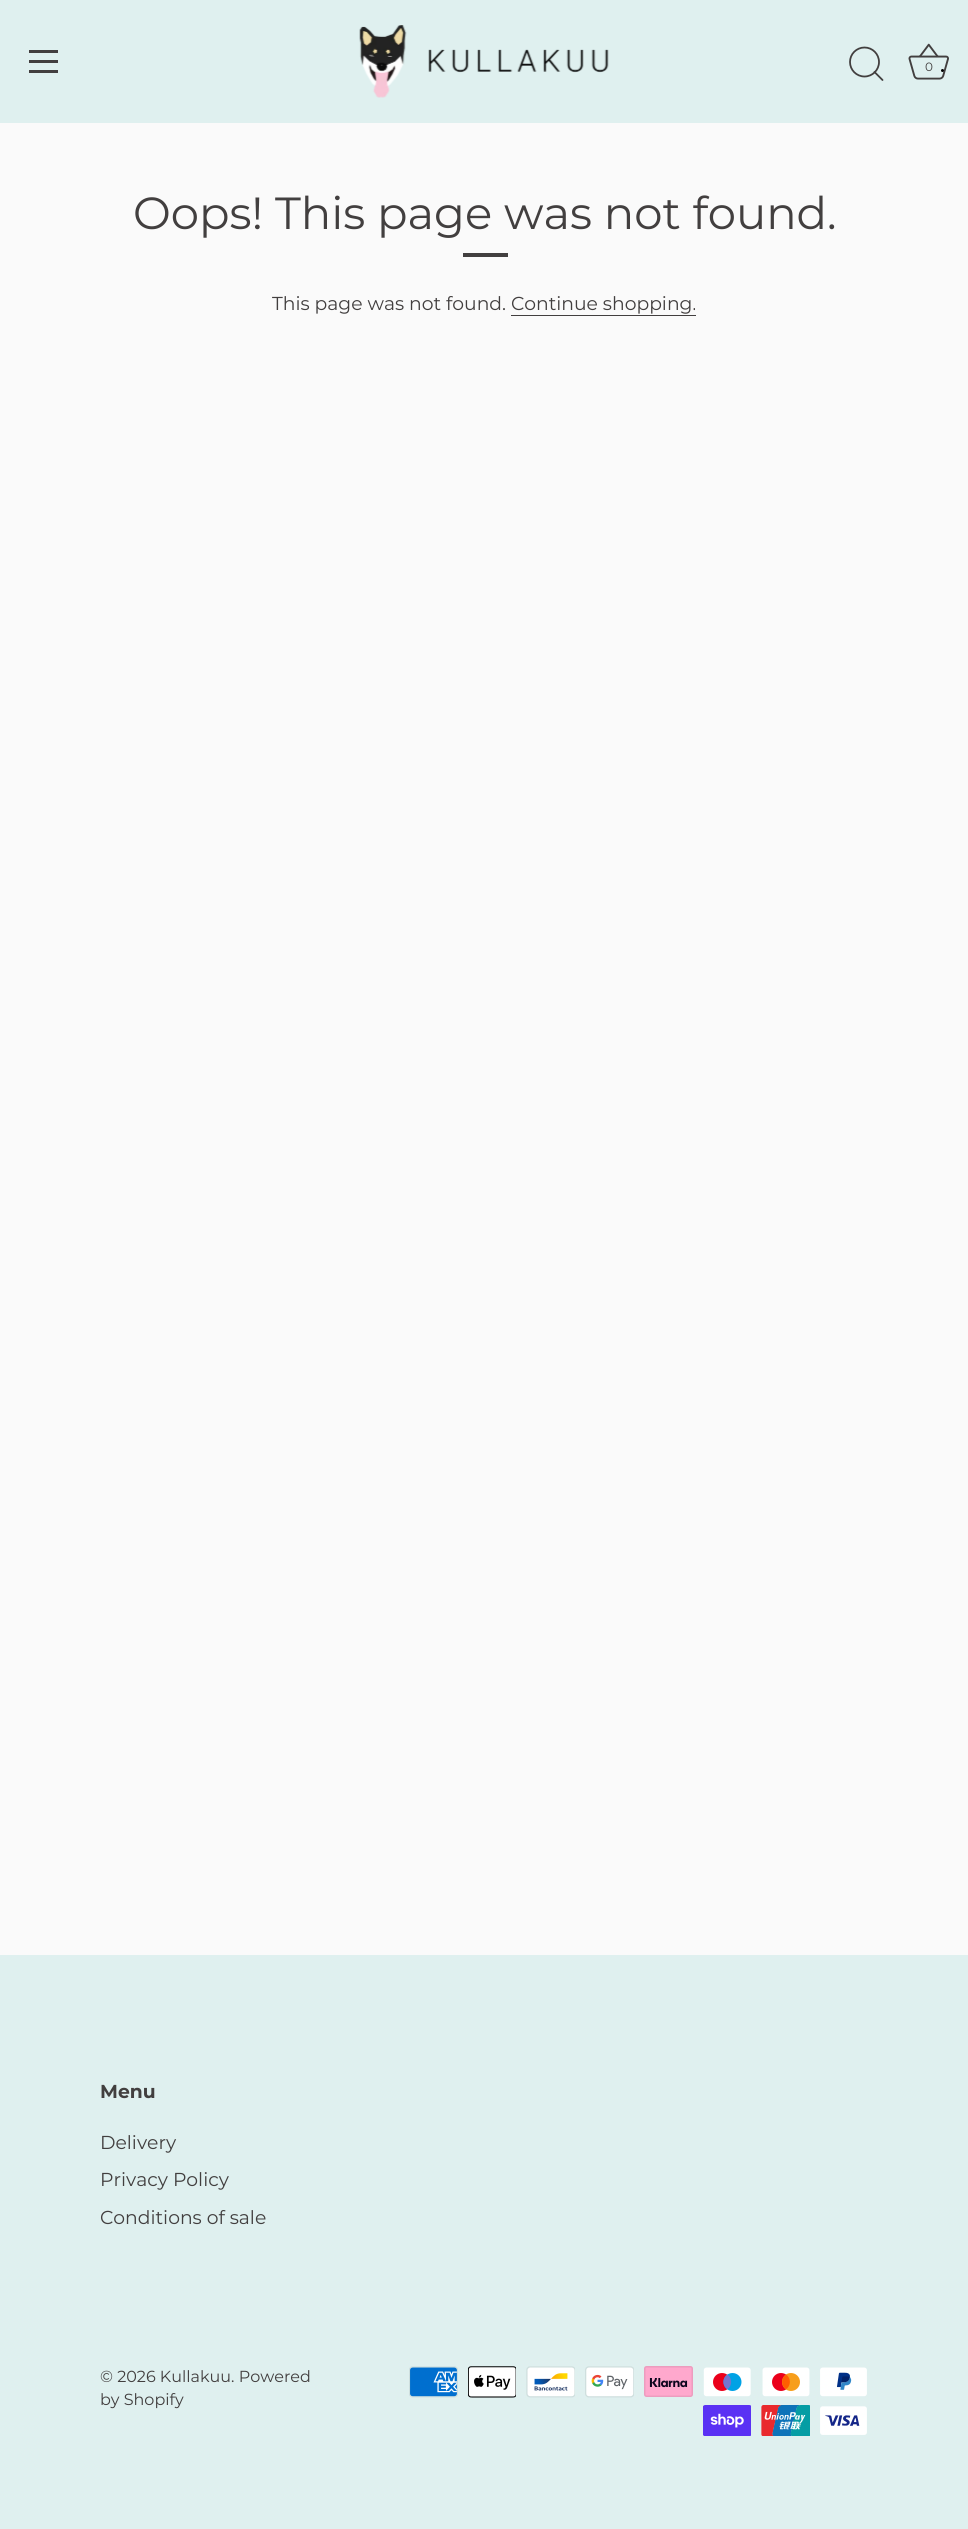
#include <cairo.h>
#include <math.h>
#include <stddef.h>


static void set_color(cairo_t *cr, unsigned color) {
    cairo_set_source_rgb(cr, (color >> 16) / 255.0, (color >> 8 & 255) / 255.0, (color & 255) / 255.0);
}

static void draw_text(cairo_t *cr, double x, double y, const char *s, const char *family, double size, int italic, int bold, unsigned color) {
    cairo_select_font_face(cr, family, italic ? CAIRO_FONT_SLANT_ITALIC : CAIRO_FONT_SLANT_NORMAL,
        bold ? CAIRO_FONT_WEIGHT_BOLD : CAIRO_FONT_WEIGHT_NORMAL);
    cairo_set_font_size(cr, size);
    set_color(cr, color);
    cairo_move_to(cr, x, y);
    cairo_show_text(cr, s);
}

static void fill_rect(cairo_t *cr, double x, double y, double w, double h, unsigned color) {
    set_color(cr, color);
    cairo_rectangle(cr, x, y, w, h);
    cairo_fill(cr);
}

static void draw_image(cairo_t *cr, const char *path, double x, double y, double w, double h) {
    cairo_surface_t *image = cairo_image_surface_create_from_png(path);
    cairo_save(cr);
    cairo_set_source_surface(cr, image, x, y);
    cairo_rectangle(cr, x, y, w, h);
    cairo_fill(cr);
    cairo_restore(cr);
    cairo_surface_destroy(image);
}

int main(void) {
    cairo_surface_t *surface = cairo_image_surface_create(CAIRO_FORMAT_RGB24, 968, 2529);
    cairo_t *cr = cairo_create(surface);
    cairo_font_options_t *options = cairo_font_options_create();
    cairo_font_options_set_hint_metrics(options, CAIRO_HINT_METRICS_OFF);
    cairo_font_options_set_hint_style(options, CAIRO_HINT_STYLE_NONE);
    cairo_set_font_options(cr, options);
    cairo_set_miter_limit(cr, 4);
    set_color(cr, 0xFAFAFA);
    cairo_paint(cr);
    fill_rect(cr, 0, 0, 968, 123, 0xDFF0EF);
    fill_rect(cr, 29, 50, 29, 3, 0x423F3F);
    fill_rect(cr, 29, 60, 29, 3, 0x423F3F);
    fill_rect(cr, 29, 70, 29, 3, 0x423F3F);
    draw_image(cr, "assets/img1.png", 359, 25, 250, 73);
    cairo_arc(cr, 864.5, 62, 14.5, 0, 2 * M_PI);
    cairo_set_line_width(cr, 1.8);
    cairo_stroke(cr);
    cairo_new_path(cr);
    cairo_move_to(cr, 882.5, 80);
    cairo_line_to(cr, 874.5, 72);
    cairo_set_line_cap(cr, CAIRO_LINE_CAP_ROUND);
    cairo_set_line_join(cr, CAIRO_LINE_JOIN_ROUND);
    cairo_stroke(cr);
    draw_image(cr, "assets/img2.png", 908, 43, 41, 37);
    draw_text(cr, 925, 71, "0", "Montserrat", 12, 0, 0, 0x423F3F);
    set_color(cr, 0x000000);
    cairo_new_path(cr);
    cairo_arc(cr, 942.5, 70.5, 1.5, 0, 2 * M_PI);
    cairo_fill(cr);
    draw_text(cr, 133, 229, "Oops! This page was not found.", "Montserrat", 45, 0, 0, 0x423F3F);
    fill_rect(cr, 463, 253, 45, 4, 0x423F3F);
    draw_text(cr, 272, 310, "This page was not found. Continue shopping.", "Montserrat", 18.75, 0, 0, 0x423F3F);
    fill_rect(cr, 511, 315, 185, 1, 0x423F3F);
    fill_rect(cr, 0, 1955, 968, 574, 0xDFF0EF);
    draw_text(cr, 100, 2098, "Menu", "Montserrat", 18.75, 0, 1, 0x423F3F);
    draw_text(cr, 100, 2149, "Delivery", "Montserrat", 18.75, 0, 0, 0x423F3F);
    draw_text(cr, 100, 2186, "Privacy Policy", "Montserrat", 18.75, 0, 0, 0x423F3F);
    draw_text(cr, 100, 2224, "Conditions of sale", "Montserrat", 18.75, 0, 0, 0x423F3F);
    draw_text(cr, 100, 2382, "© 2026 Kullakuu. Powered", "Montserrat", 16, 0, 0, 0x423F3F);
    draw_text(cr, 100, 2405, "by Shopify", "Montserrat", 16, 0, 0, 0x423F3F);
    draw_image(cr, "assets/img3.png", 409, 2366, 49, 32);
    draw_image(cr, "assets/img4.png", 468, 2366, 48, 32);
    draw_image(cr, "assets/img5.png", 526, 2366, 49, 32);
    draw_image(cr, "assets/img6.png", 585, 2366, 49, 32);
    draw_image(cr, "assets/img7.png", 644, 2366, 49, 31);
    draw_image(cr, "assets/img8.png", 703, 2367, 48, 30);
    draw_image(cr, "assets/img9.png", 762, 2367, 48, 30);
    draw_image(cr, "assets/img10.png", 820, 2367, 47, 30);
    draw_image(cr, "assets/img11.png", 703, 2405, 48, 31);
    draw_image(cr, "assets/img12.png", 761, 2405, 49, 31);
    draw_image(cr, "assets/img13.png", 820, 2406, 47, 29);
    cairo_surface_write_to_png(surface, "output.png");
    cairo_font_options_destroy(options);
    cairo_destroy(cr);
    cairo_surface_destroy(surface);
    return 0;
}
